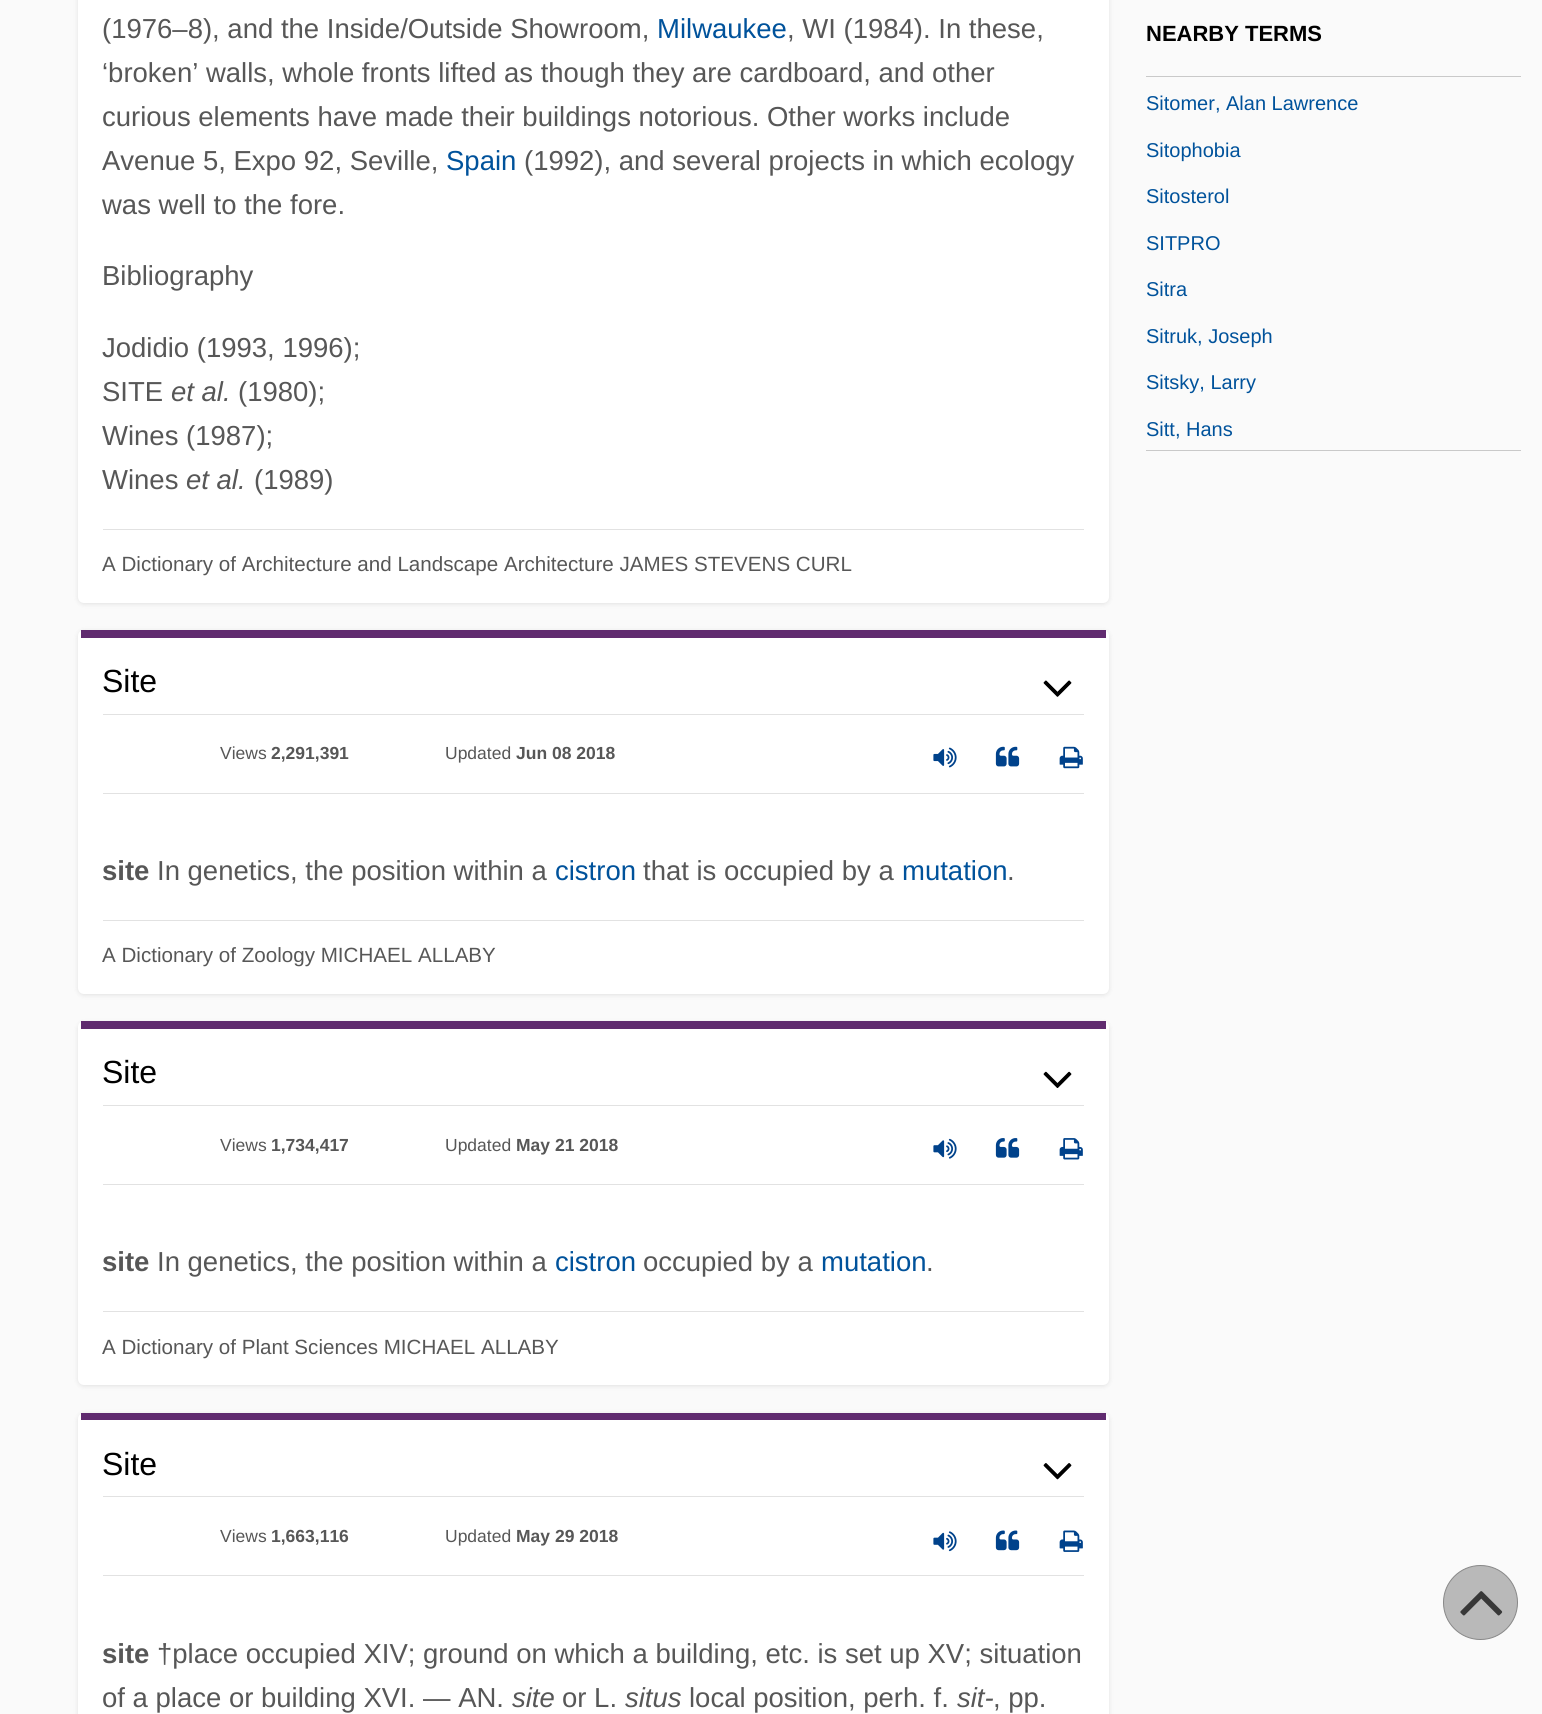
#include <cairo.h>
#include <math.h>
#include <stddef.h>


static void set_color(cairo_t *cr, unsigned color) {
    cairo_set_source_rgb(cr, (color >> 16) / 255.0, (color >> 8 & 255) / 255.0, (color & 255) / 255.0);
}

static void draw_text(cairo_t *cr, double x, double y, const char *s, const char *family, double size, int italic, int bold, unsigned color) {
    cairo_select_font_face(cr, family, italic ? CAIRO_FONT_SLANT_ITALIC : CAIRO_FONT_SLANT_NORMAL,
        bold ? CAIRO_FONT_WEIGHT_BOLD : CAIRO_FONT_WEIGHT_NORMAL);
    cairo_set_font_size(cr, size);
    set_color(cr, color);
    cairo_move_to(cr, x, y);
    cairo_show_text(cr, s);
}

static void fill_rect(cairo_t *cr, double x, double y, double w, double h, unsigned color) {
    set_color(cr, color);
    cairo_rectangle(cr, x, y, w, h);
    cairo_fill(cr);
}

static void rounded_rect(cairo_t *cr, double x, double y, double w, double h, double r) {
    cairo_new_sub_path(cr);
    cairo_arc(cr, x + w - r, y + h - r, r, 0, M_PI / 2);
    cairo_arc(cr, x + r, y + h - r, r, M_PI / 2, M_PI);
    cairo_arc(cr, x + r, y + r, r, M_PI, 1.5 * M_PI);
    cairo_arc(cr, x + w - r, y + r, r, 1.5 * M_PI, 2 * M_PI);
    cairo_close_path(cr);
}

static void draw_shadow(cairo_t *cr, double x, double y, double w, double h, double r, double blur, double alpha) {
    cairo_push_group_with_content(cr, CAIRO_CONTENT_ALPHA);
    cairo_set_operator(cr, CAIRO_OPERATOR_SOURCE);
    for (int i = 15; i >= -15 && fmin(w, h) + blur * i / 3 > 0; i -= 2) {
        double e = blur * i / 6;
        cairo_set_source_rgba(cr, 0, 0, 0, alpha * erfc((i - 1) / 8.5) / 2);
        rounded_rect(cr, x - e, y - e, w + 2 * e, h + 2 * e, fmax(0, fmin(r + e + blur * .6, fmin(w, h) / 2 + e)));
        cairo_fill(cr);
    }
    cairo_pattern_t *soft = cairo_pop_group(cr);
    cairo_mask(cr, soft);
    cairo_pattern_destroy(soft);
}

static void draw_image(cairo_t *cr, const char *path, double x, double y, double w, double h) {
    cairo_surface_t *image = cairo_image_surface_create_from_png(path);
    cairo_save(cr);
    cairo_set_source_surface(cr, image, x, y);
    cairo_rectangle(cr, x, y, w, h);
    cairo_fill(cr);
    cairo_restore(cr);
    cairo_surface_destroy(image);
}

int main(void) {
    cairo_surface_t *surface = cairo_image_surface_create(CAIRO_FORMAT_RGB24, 1542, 1714);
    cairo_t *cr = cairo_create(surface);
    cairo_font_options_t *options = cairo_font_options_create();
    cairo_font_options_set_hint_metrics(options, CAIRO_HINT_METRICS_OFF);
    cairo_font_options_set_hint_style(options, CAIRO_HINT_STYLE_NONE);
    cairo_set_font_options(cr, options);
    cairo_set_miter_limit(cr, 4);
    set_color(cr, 0xFAFAFA);
    cairo_paint(cr);
    set_color(cr, 0x000000);
    draw_shadow(cr, 78, -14, 1031, 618, 6, 2.5, 0.1);
    set_color(cr, 0xFFFFFF);
    rounded_rect(cr, 78, -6, 1031, 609, 6);
    cairo_fill(cr);
    fill_rect(cr, 103, 529, 981, 1, 0xE2E2E2);
    draw_text(cr, 102, 38, "(1976–8), and the Inside/Outside Showroom,", "Liberation Sans", 27.5, 0, 0, 0x575757);
    draw_text(cr, 657, 38, "Milwaukee", "Liberation Sans", 27.5, 0, 0, 0x00529B);
    draw_text(cr, 787, 38, ", WI (1984). In these,", "Liberation Sans", 27.5, 0, 0, 0x575757);
    draw_text(cr, 102, 82, "‘broken’ walls, whole fronts lifted as though they are cardboard, and other", "Liberation Sans", 27.5, 0, 0, 0x575757);
    draw_text(cr, 102, 126, "curious elements have made their buildings notorious. Other works include", "Liberation Sans", 27.5, 0, 0, 0x575757);
    draw_text(cr, 102, 170, "Avenue 5, Expo 92, Seville,", "Liberation Sans", 27.5, 0, 0, 0x575757);
    draw_text(cr, 446, 170, "Spain", "Liberation Sans", 27.5, 0, 0, 0x00529B);
    draw_text(cr, 524, 170, "(1992), and several projects in which ecology", "Liberation Sans", 27.5, 0, 0, 0x575757);
    draw_text(cr, 102, 214, "was well to the fore.", "Liberation Sans", 27.5, 0, 0, 0x575757);
    draw_text(cr, 102, 285, "Bibliography", "Liberation Sans", 27.5, 0, 0, 0x575757);
    draw_text(cr, 102, 357, "Jodidio (1993, 1996);", "Liberation Sans", 27.5, 0, 0, 0x575757);
    draw_text(cr, 102, 401, "SITE", "Liberation Sans", 27.5, 0, 0, 0x575757);
    draw_text(cr, 171, 401, "et al.", "Liberation Sans", 27.5, 1, 0, 0x575757);
    draw_text(cr, 238, 401, "(1980);", "Liberation Sans", 27.5, 0, 0, 0x575757);
    draw_text(cr, 102, 445, "Wines (1987);", "Liberation Sans", 27.5, 0, 0, 0x575757);
    draw_text(cr, 102, 489, "Wines", "Liberation Sans", 27.5, 0, 0, 0x575757);
    draw_text(cr, 186, 489, "et al.", "Liberation Sans", 27.5, 1, 0, 0x575757);
    draw_text(cr, 254, 489, "(1989)", "Liberation Sans", 27.5, 0, 0, 0x575757);
    draw_text(cr, 102, 571, "A Dictionary of Architecture and Landscape Architecture JAMES STEVENS CURL", "Liberation Sans", 20.6, 0, 0, 0x575757);
    set_color(cr, 0x000000);
    draw_shadow(cr, 78, 631, 1031, 364, 6, 2.5, 0.1);
    set_color(cr, 0xFFFFFF);
    rounded_rect(cr, 78, 630, 1031, 364, 6);
    cairo_fill(cr);
    fill_rect(cr, 81, 630, 1025, 8, 0x602B6F);
    draw_text(cr, 102, 692, "Site", "Liberation Sans", 32, 0, 0, 0x000000);
    draw_image(cr, "assets/img1.png", 1043, 680, 29, 17);
    fill_rect(cr, 103, 714, 981, 1, 0xE2E2E2);
    fill_rect(cr, 103, 793, 981, 1, 0xE2E2E2);
    draw_text(cr, 220, 759, "Views", "Liberation Sans", 17.5, 0, 0, 0x575757);
    draw_text(cr, 271, 759, "2,291,391", "Liberation Sans", 17.5, 0, 1, 0x575757);
    draw_text(cr, 445, 759, "Updated", "Liberation Sans", 17.5, 0, 0, 0x575757);
    draw_text(cr, 516, 759, "Jun 08 2018", "Liberation Sans", 17.5, 0, 1, 0x575757);
    draw_image(cr, "assets/img2.png", 933, 747, 24, 21);
    draw_image(cr, "assets/img3.png", 995, 746, 25, 21);
    draw_image(cr, "assets/img4.png", 1059, 746, 24, 23);
    fill_rect(cr, 103, 920, 981, 1, 0xE2E2E2);
    draw_text(cr, 102, 880, "site", "Liberation Sans", 27.5, 0, 1, 0x575757);
    draw_text(cr, 157, 880, "In genetics, the position within a", "Liberation Sans", 27.5, 0, 0, 0x575757);
    draw_text(cr, 555, 880, "cistron", "Liberation Sans", 27.5, 0, 0, 0x00529B);
    draw_text(cr, 643, 880, "that is occupied by a", "Liberation Sans", 27.5, 0, 0, 0x575757);
    draw_text(cr, 902, 880, "mutation", "Liberation Sans", 27.5, 0, 0, 0x00529B);
    draw_text(cr, 1007, 880, ".", "Liberation Sans", 27.5, 0, 0, 0x575757);
    draw_text(cr, 102, 962, "A Dictionary of Zoology MICHAEL ALLABY", "Liberation Sans", 20.6, 0, 0, 0x575757);
    set_color(cr, 0x000000);
    draw_shadow(cr, 78, 1023, 1031, 363, 6, 2.5, 0.1);
    set_color(cr, 0xFFFFFF);
    rounded_rect(cr, 78, 1021, 1031, 364, 6);
    cairo_fill(cr);
    fill_rect(cr, 81, 1021, 1025, 8, 0x602B6F);
    draw_text(cr, 102, 1083, "Site", "Liberation Sans", 32, 0, 0, 0x000000);
    draw_image(cr, "assets/img5.png", 1043, 1071, 29, 17);
    fill_rect(cr, 103, 1105, 981, 1, 0xE2E2E2);
    fill_rect(cr, 103, 1184, 981, 1, 0xE2E2E2);
    draw_text(cr, 220, 1151, "Views", "Liberation Sans", 17.5, 0, 0, 0x575757);
    draw_text(cr, 271, 1151, "1,734,417", "Liberation Sans", 17.5, 0, 1, 0x575757);
    draw_text(cr, 445, 1151, "Updated", "Liberation Sans", 17.5, 0, 0, 0x575757);
    draw_text(cr, 516, 1151, "May 21 2018", "Liberation Sans", 17.5, 0, 1, 0x575757);
    draw_image(cr, "assets/img6.png", 933, 1138, 24, 21);
    draw_image(cr, "assets/img7.png", 995, 1138, 25, 20);
    draw_image(cr, "assets/img8.png", 1059, 1138, 24, 22);
    fill_rect(cr, 103, 1311, 981, 1, 0xE2E2E2);
    draw_text(cr, 102, 1271, "site", "Liberation Sans", 27.5, 0, 1, 0x575757);
    draw_text(cr, 157, 1271, "In genetics, the position within a", "Liberation Sans", 27.5, 0, 0, 0x575757);
    draw_text(cr, 555, 1271, "cistron", "Liberation Sans", 27.5, 0, 0, 0x00529B);
    draw_text(cr, 643, 1271, "occupied by a", "Liberation Sans", 27.5, 0, 0, 0x575757);
    draw_text(cr, 821, 1271, "mutation", "Liberation Sans", 27.5, 0, 0, 0x00529B);
    draw_text(cr, 926, 1271, ".", "Liberation Sans", 27.5, 0, 0, 0x575757);
    draw_text(cr, 102, 1354, "A Dictionary of Plant Sciences MICHAEL ALLABY", "Liberation Sans", 20.6, 0, 0, 0x575757);
    set_color(cr, 0x000000);
    draw_shadow(cr, 78, 1414, 1031, 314, 6, 2.5, 0.1);
    set_color(cr, 0xFFFFFF);
    rounded_rect(cr, 78, 1413, 1031, 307, 6);
    cairo_fill(cr);
    fill_rect(cr, 81, 1413, 1025, 7, 0x602B6F);
    draw_text(cr, 102, 1475, "Site", "Liberation Sans", 32, 0, 0, 0x000000);
    draw_image(cr, "assets/img9.png", 1043, 1463, 29, 17);
    fill_rect(cr, 103, 1496, 981, 1, 0xE2E2E2);
    fill_rect(cr, 103, 1575, 981, 1, 0xE2E2E2);
    draw_text(cr, 220, 1542, "Views", "Liberation Sans", 17.5, 0, 0, 0x575757);
    draw_text(cr, 271, 1542, "1,663,116", "Liberation Sans", 17.5, 0, 1, 0x575757);
    draw_text(cr, 445, 1542, "Updated", "Liberation Sans", 17.5, 0, 0, 0x575757);
    draw_text(cr, 516, 1542, "May 29 2018", "Liberation Sans", 17.5, 0, 1, 0x575757);
    draw_image(cr, "assets/img10.png", 933, 1531, 24, 21);
    draw_image(cr, "assets/img11.png", 995, 1530, 25, 21);
    draw_image(cr, "assets/img12.png", 1059, 1530, 24, 22);
    draw_text(cr, 102, 1663, "site", "Liberation Sans", 27.5, 0, 1, 0x575757);
    draw_text(cr, 157, 1663, "†place occupied XIV; ground on which a building, etc. is set up XV; situation", "Liberation Sans", 27.5, 0, 0, 0x575757);
    draw_text(cr, 102, 1707, "of a place or building XVI. — AN.", "Liberation Sans", 27.5, 0, 0, 0x575757);
    draw_text(cr, 512, 1707, "site", "Liberation Sans", 27.5, 1, 0, 0x575757);
    draw_text(cr, 562, 1707, "or L.", "Liberation Sans", 27.5, 0, 0, 0x575757);
    draw_text(cr, 625, 1707, "situs", "Liberation Sans", 27.5, 1, 0, 0x575757);
    draw_text(cr, 689, 1707, "local position, perh. f.", "Liberation Sans", 27.5, 0, 0, 0x575757);
    draw_text(cr, 957, 1707, "sit-", "Liberation Sans", 27.5, 1, 0, 0x575757);
    draw_text(cr, 993, 1707, ", pp.", "Liberation Sans", 27.5, 0, 0, 0x575757);
    draw_text(cr, 1146, 41, "NEARBY TERMS", "Liberation Sans", 22, 0, 1, 0x000000);
    fill_rect(cr, 1146, 76, 375, 1, 0xC9C9C9);
    fill_rect(cr, 1146, 450, 375, 1, 0xC9C9C9);
    draw_text(cr, 1146, 110, "Sitomer, Alan Lawrence", "Liberation Sans", 20, 0, 0, 0x00529B);
    draw_text(cr, 1146, 157, "Sitophobia", "Liberation Sans", 20, 0, 0, 0x00529B);
    draw_text(cr, 1146, 203, "Sitosterol", "Liberation Sans", 20, 0, 0, 0x00529B);
    draw_text(cr, 1146, 250, "SITPRO", "Liberation Sans", 20, 0, 0, 0x00529B);
    draw_text(cr, 1146, 296, "Sitra", "Liberation Sans", 20, 0, 0, 0x00529B);
    draw_text(cr, 1146, 343, "Sitruk, Joseph", "Liberation Sans", 20, 0, 0, 0x00529B);
    draw_text(cr, 1146, 389, "Sitsky, Larry", "Liberation Sans", 20, 0, 0, 0x00529B);
    draw_text(cr, 1146, 436, "Sitt, Hans", "Liberation Sans", 20, 0, 0, 0x00529B);
    set_color(cr, 0xB9B9B9);
    cairo_new_path(cr);
    cairo_arc(cr, 1480.5, 1602.5, 37, 0, 2 * M_PI);
    cairo_fill_preserve(cr);
    set_color(cr, 0x888888);
    cairo_set_line_width(cr, 1);
    cairo_stroke(cr);
    draw_image(cr, "assets/img13.png", 1460, 1591, 43, 25);
    cairo_surface_write_to_png(surface, "output.png");
    cairo_font_options_destroy(options);
    cairo_destroy(cr);
    cairo_surface_destroy(surface);
    return 0;
}
